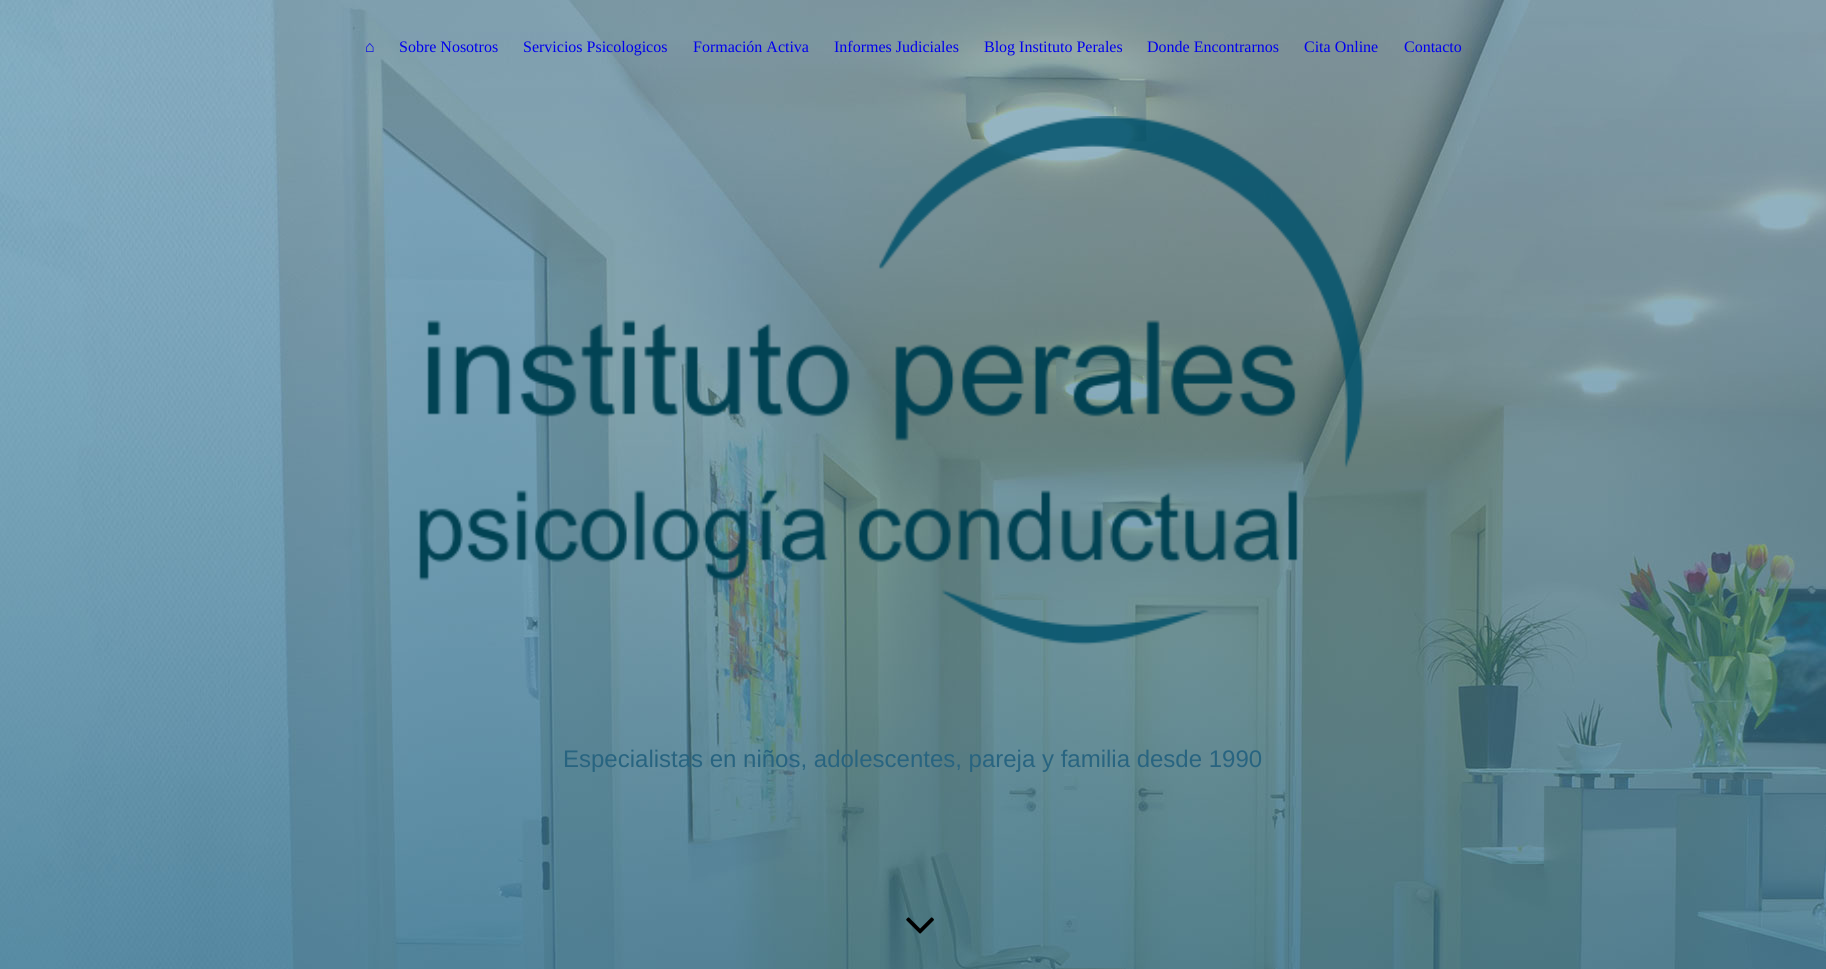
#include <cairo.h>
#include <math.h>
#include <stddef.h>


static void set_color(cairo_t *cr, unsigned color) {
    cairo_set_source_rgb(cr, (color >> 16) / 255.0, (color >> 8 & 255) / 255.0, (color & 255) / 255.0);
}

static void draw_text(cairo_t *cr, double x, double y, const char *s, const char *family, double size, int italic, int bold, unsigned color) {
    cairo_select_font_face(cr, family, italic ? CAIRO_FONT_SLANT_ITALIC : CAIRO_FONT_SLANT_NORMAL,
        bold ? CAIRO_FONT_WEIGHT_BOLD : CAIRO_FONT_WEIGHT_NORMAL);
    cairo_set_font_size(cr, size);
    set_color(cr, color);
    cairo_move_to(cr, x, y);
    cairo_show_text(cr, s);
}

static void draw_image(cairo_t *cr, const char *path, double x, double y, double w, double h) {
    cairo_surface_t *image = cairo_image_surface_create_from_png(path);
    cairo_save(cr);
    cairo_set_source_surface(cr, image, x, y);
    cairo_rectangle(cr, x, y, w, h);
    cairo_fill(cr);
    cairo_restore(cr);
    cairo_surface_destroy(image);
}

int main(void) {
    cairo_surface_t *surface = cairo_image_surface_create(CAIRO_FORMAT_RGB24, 1826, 969);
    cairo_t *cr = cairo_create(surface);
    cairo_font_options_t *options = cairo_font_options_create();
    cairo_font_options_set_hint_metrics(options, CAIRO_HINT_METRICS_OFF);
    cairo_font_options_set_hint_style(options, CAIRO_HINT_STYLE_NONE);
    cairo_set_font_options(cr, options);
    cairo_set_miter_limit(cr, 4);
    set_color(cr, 0xFFFFFF);
    cairo_paint(cr);
    draw_image(cr, "assets/img1.png", 0, 0, 1826, 969);
    draw_text(cr, 365, 52, "⌂", "Liberation Serif", 16, 0, 0, 0x0000EE);
    draw_text(cr, 399, 52, "Sobre Nosotros", "Liberation Serif", 16, 0, 0, 0x0000EE);
    draw_text(cr, 523, 52, "Servicios Psicologicos", "Liberation Serif", 16, 0, 0, 0x0000EE);
    draw_text(cr, 693, 52, "Formación Activa", "Liberation Serif", 16, 0, 0, 0x0000EE);
    draw_text(cr, 834, 52, "Informes Judiciales", "Liberation Serif", 16, 0, 0, 0x0000EE);
    draw_text(cr, 984, 52, "Blog Instituto Perales", "Liberation Serif", 16, 0, 0, 0x0000EE);
    draw_text(cr, 1147, 52, "Donde Encontrarnos", "Liberation Serif", 16, 0, 0, 0x0000EE);
    draw_text(cr, 1304, 52, "Cita Online", "Liberation Serif", 16, 0, 0, 0x0000EE);
    draw_text(cr, 1404, 52, "Contacto", "Liberation Serif", 16, 0, 0, 0x0000EE);
    draw_image(cr, "assets/img2.png", 419, 116, 945, 529);
    draw_text(cr, 563, 767, "Especialistas en niños, adolescentes, pareja y familia desde 1990", "Liberation Sans", 24, 0, 0, 0x286480);
    draw_image(cr, "assets/img3.png", 906, 917, 28, 17);
    cairo_surface_write_to_png(surface, "output.png");
    cairo_font_options_destroy(options);
    cairo_destroy(cr);
    cairo_surface_destroy(surface);
    return 0;
}
